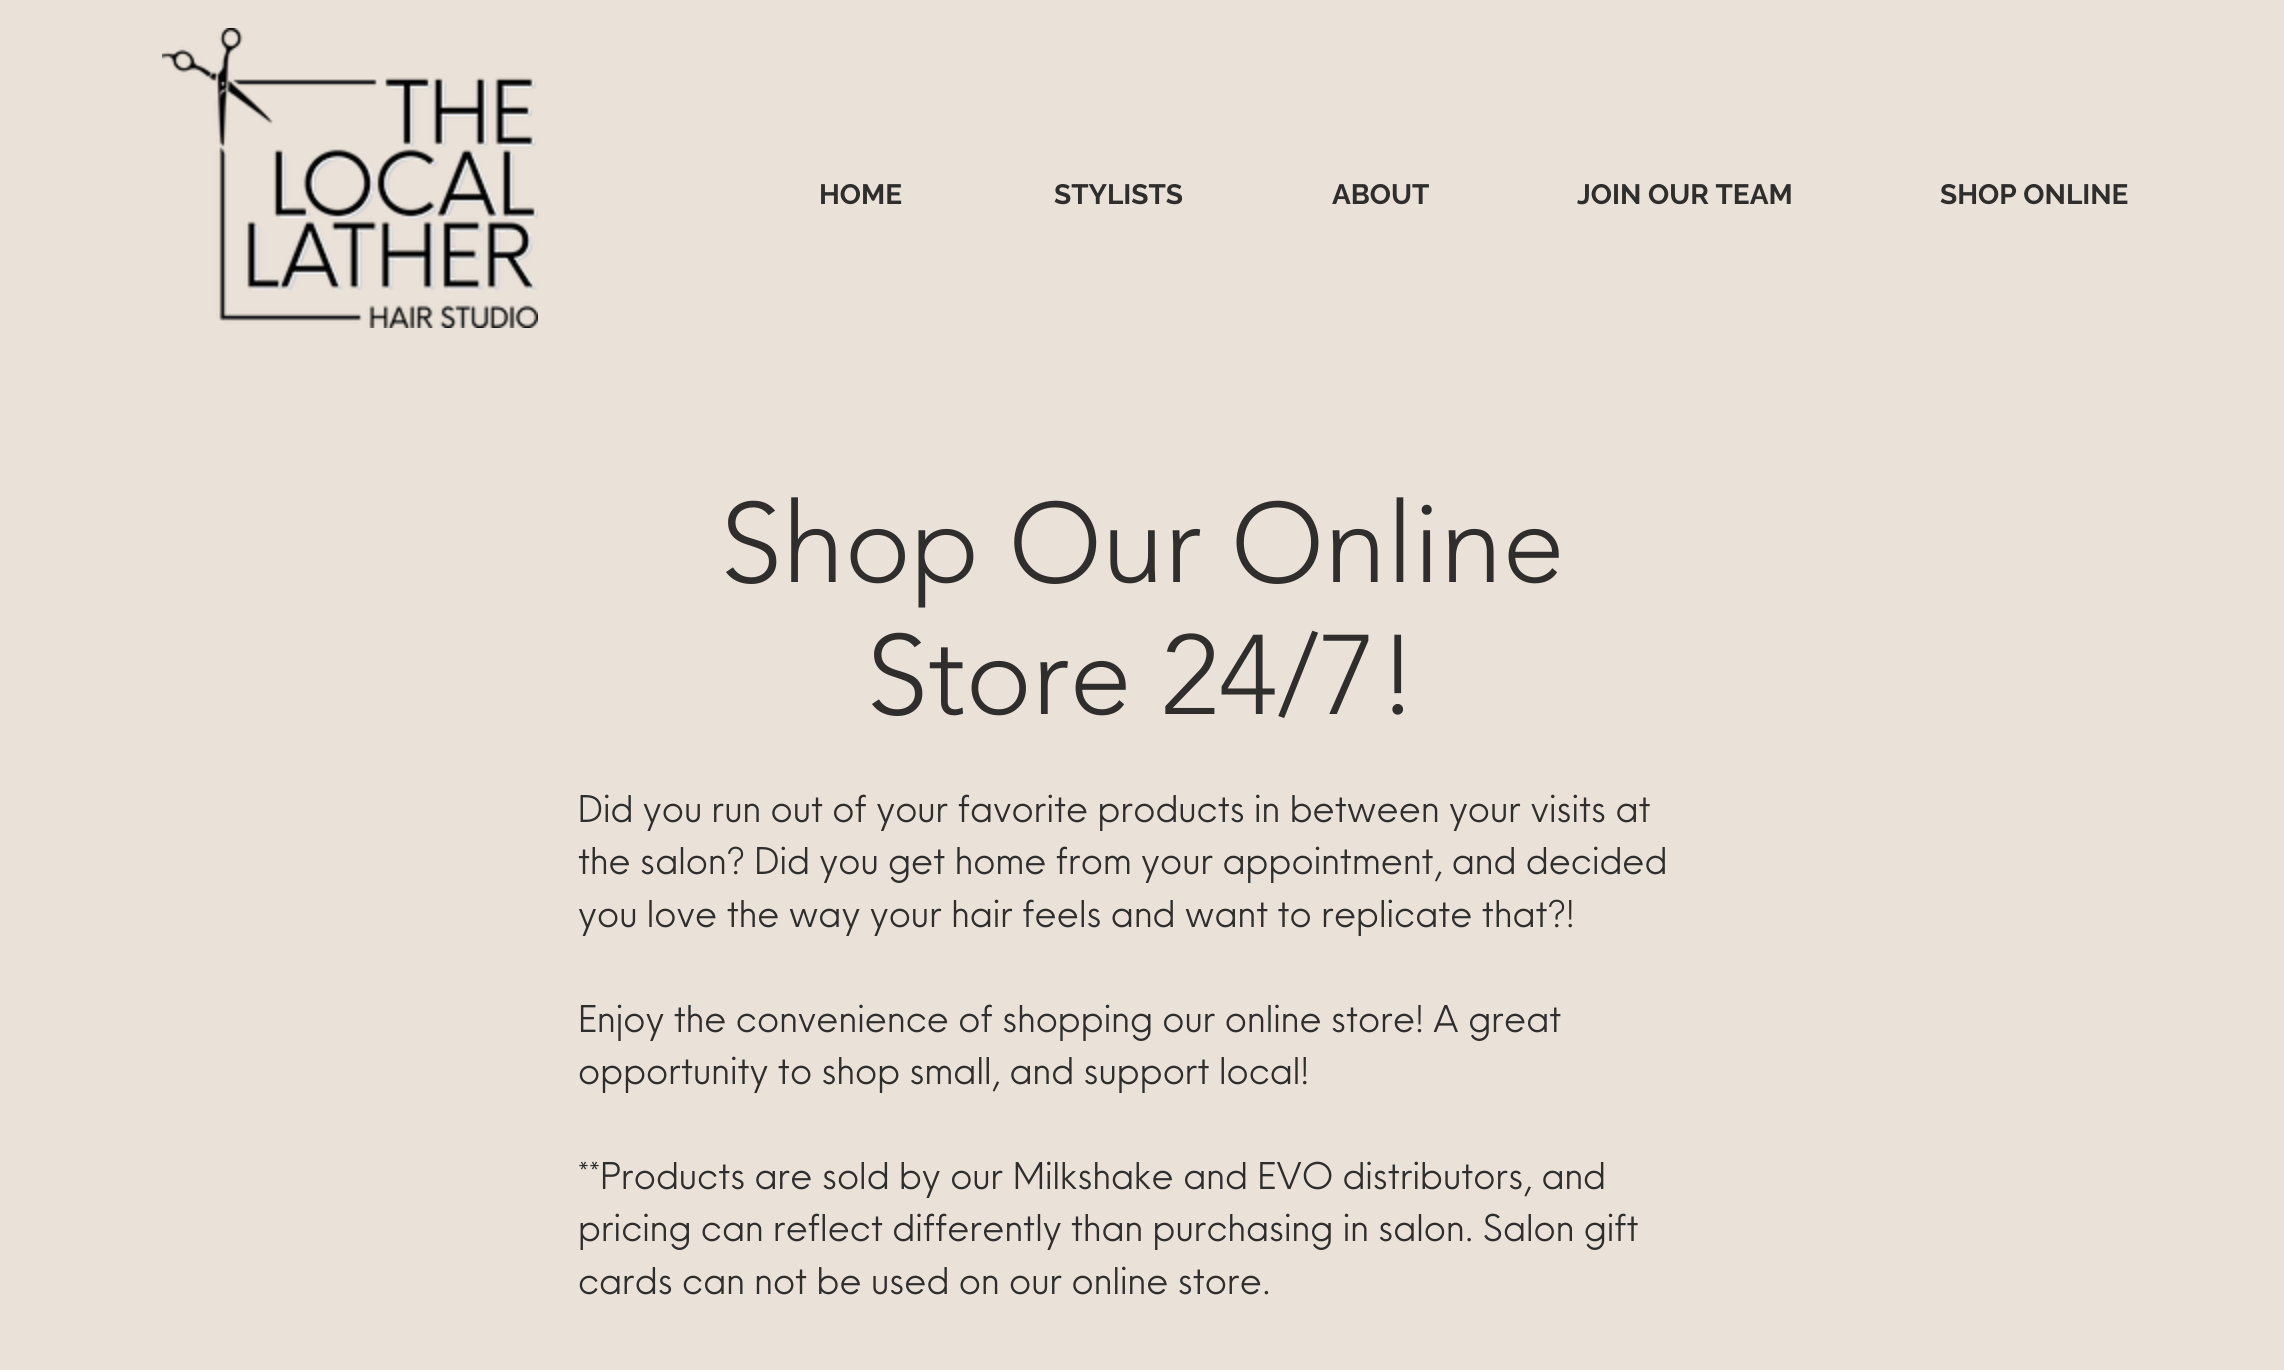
#include <cairo.h>
#include <math.h>
#include <stddef.h>


static void set_color(cairo_t *cr, unsigned color) {
    cairo_set_source_rgb(cr, (color >> 16) / 255.0, (color >> 8 & 255) / 255.0, (color & 255) / 255.0);
}

static void draw_text(cairo_t *cr, double x, double y, const char *s, const char *family, double size, int italic, int bold, unsigned color) {
    cairo_select_font_face(cr, family, italic ? CAIRO_FONT_SLANT_ITALIC : CAIRO_FONT_SLANT_NORMAL,
        bold ? CAIRO_FONT_WEIGHT_BOLD : CAIRO_FONT_WEIGHT_NORMAL);
    cairo_set_font_size(cr, size);
    set_color(cr, color);
    cairo_move_to(cr, x, y);
    cairo_show_text(cr, s);
}

static void draw_image(cairo_t *cr, const char *path, double x, double y, double w, double h) {
    cairo_surface_t *image = cairo_image_surface_create_from_png(path);
    cairo_save(cr);
    cairo_set_source_surface(cr, image, x, y);
    cairo_rectangle(cr, x, y, w, h);
    cairo_fill(cr);
    cairo_restore(cr);
    cairo_surface_destroy(image);
}

int main(void) {
    cairo_surface_t *surface = cairo_image_surface_create(CAIRO_FORMAT_RGB24, 2284, 1370);
    cairo_t *cr = cairo_create(surface);
    cairo_font_options_t *options = cairo_font_options_create();
    cairo_font_options_set_hint_metrics(options, CAIRO_HINT_METRICS_OFF);
    cairo_font_options_set_hint_style(options, CAIRO_HINT_STYLE_NONE);
    cairo_set_font_options(cr, options);
    cairo_set_miter_limit(cr, 4);
    set_color(cr, 0xEAE2D9);
    cairo_paint(cr);
    draw_image(cr, "assets/img1.png", 162, 28, 376, 300);
    draw_text(cr, 819, 204, "HOME", "Raleway", 28, 0, 1, 0x2F2E2D);
    draw_text(cr, 1054, 204, "STYLISTS", "Raleway", 28, 0, 1, 0x2F2E2D);
    draw_text(cr, 1332, 204, "ABOUT", "Raleway", 28, 0, 1, 0x2F2E2D);
    draw_text(cr, 1577, 204, "JOIN OUR TEAM", "Raleway", 28, 0, 1, 0x2F2E2D);
    draw_text(cr, 1940, 204, "SHOP ONLINE", "Raleway", 28, 0, 1, 0x2F2E2D);
    draw_text(cr, 720, 582, "Shop Our Online", "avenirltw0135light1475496 Light", 112, 0, 0, 0x2F2E2D);
    draw_text(cr, 866, 714, "Store 24/7!", "avenirltw0135light1475496 Light", 112, 0, 0, 0x2F2E2D);
    draw_text(cr, 578, 822, "Did you run out of your favorite products in between your visits at", "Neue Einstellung", 36, 0, 0, 0x2F2E2D);
    draw_text(cr, 578, 874, "the salon? Did you get home from your appointment, and decided", "Neue Einstellung", 36, 0, 0, 0x2F2E2D);
    draw_text(cr, 578, 927, "you love the way your hair feels and want to replicate that?!", "Neue Einstellung", 36, 0, 0, 0x2F2E2D);
    draw_text(cr, 578, 1032, "Enjoy the convenience of shopping our online store! A great", "Neue Einstellung", 36, 0, 0, 0x2F2E2D);
    draw_text(cr, 578, 1084, "opportunity to shop small, and support local!", "Neue Einstellung", 36, 0, 0, 0x2F2E2D);
    draw_text(cr, 578, 1189, "**Products are sold by our Milkshake and EVO distributors, and", "Neue Einstellung", 36, 0, 0, 0x2F2E2D);
    draw_text(cr, 578, 1241, "pricing can reflect differently than purchasing in salon. Salon gift", "Neue Einstellung", 36, 0, 0, 0x2F2E2D);
    draw_text(cr, 578, 1294, "cards can not be used on our online store.", "Neue Einstellung", 36, 0, 0, 0x2F2E2D);
    cairo_surface_write_to_png(surface, "output.png");
    cairo_font_options_destroy(options);
    cairo_destroy(cr);
    cairo_surface_destroy(surface);
    return 0;
}
